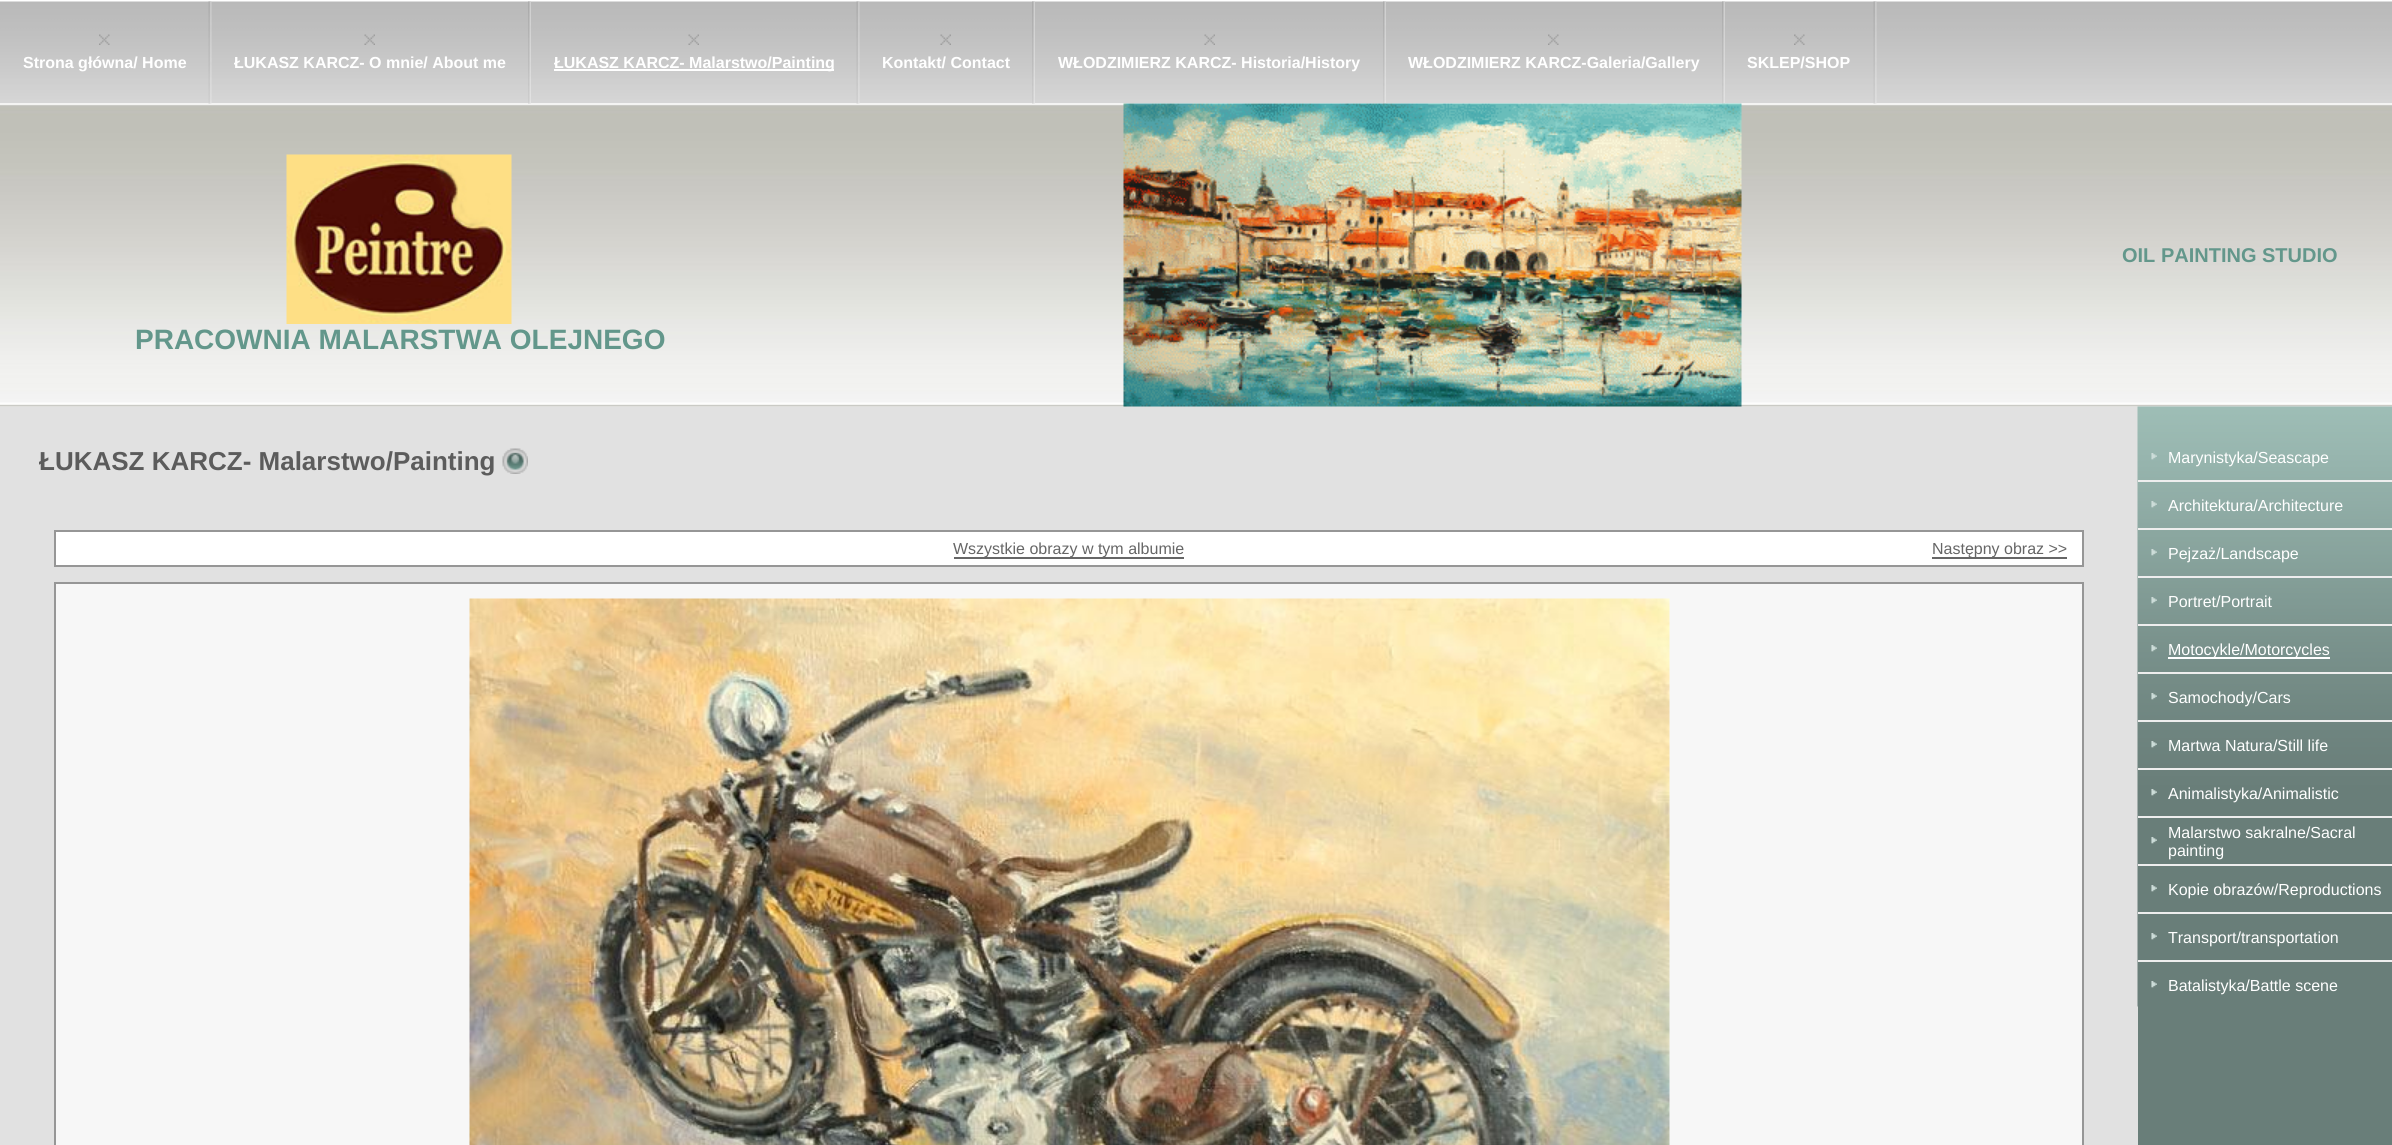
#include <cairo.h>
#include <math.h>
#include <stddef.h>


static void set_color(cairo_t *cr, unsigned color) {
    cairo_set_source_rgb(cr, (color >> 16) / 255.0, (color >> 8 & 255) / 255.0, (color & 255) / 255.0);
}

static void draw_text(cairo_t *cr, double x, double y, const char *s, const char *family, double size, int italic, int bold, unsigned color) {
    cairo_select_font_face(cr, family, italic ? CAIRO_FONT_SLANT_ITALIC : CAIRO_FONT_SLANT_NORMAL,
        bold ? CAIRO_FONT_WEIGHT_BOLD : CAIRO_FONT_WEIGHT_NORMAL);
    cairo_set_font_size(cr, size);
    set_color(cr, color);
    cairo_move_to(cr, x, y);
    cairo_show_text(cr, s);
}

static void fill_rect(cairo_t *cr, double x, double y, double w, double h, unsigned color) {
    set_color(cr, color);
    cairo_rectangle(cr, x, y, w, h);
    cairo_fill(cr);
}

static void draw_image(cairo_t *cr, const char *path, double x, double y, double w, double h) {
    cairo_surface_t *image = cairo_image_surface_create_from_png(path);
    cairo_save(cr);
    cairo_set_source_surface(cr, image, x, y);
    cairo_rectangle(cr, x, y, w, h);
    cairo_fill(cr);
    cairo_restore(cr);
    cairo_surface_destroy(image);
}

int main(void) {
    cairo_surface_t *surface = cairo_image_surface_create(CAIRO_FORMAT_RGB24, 2392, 1145);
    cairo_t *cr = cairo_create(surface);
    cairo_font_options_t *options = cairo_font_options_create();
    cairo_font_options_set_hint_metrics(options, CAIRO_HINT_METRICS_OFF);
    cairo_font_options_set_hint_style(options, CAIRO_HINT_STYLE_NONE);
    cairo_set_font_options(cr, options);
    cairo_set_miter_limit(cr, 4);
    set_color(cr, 0xFFFFFF);
    cairo_paint(cr);
    draw_image(cr, "assets/img1.png", 0, 1, 2392, 103);
    draw_image(cr, "assets/img2.png", 99, 34, 11, 11);
    draw_text(cr, 23, 68, "Strona główna/ Home", "Liberation Sans", 16, 0, 1, 0xFFFFFF);
    draw_image(cr, "assets/img9.png", 0, 103, 2392, 304);
    draw_image(cr, "assets/img3.png", 208, 1, 4, 103);
    draw_image(cr, "assets/img4.png", 364, 34, 11, 11);
    draw_text(cr, 234, 68, "ŁUKASZ KARCZ- O mnie/ About me", "Liberation Sans", 16, 0, 1, 0xFFFFFF);
    draw_image(cr, "assets/img5.png", 528, 1, 3, 103);
    draw_image(cr, "assets/img4.png", 688, 34, 11, 11);
    fill_rect(cr, 554, 69, 280, 2, 0xFFFFFF);
    draw_text(cr, 554, 68, "ŁUKASZ KARCZ- Malarstwo/Painting", "Liberation Sans", 16, 0, 1, 0xFFFFFF);
    draw_image(cr, "assets/img3.png", 856, 1, 4, 103);
    draw_image(cr, "assets/img6.png", 940, 34, 11, 11);
    draw_text(cr, 882, 68, "Kontakt/ Contact", "Liberation Sans", 16, 0, 1, 0xFFFFFF);
    draw_image(cr, "assets/img5.png", 1032, 1, 3, 103);
    draw_image(cr, "assets/img4.png", 1204, 34, 11, 11);
    draw_text(cr, 1058, 68, "WŁODZIMIERZ KARCZ- Historia/History", "Liberation Sans", 16, 0, 1, 0xFFFFFF);
    draw_image(cr, "assets/img7.png", 1383, 1, 3, 103);
    draw_image(cr, "assets/img2.png", 1548, 34, 11, 11);
    draw_text(cr, 1408, 68, "WŁODZIMIERZ KARCZ-Galeria/Gallery", "Liberation Sans", 16, 0, 1, 0xFFFFFF);
    draw_image(cr, "assets/img7.png", 1722, 1, 3, 103);
    draw_image(cr, "assets/img8.png", 1794, 34, 11, 11);
    draw_text(cr, 1747, 68, "SKLEP/SHOP", "Liberation Sans", 16, 0, 1, 0xFFFFFF);
    draw_image(cr, "assets/img3.png", 1873, 1, 4, 103);
    draw_image(cr, "assets/img10.png", 1123, 103, 619, 304);
    draw_text(cr, 2122, 262, "OIL PAINTING STUDIO", "Liberation Sans", 20, 0, 1, 0x63978B);
    draw_image(cr, "assets/img11.png", 286, 154, 226, 170);
    draw_text(cr, 135, 349, "PRACOWNIA MALARSTWA OLEJNEGO", "Liberation Sans", 28, 0, 1, 0x63978B);
    fill_rect(cr, 0, 407, 2138, 738, 0xE1E1E1);
    draw_text(cr, 39, 470, "ŁUKASZ KARCZ- Malarstwo/Painting", "Liberation Sans", 26, 0, 1, 0x5C5C5C);
    draw_image(cr, "assets/img12.png", 502, 448, 26, 26);
    set_color(cr, 0xFFFFFF);
    cairo_rectangle(cr, 55, 531, 2028, 35);
    cairo_fill_preserve(cr);
    set_color(cr, 0x969696);
    cairo_stroke(cr);
    fill_rect(cr, 954, 557, 230, 2, 0x666666);
    draw_text(cr, 953, 554, "Wszystkie obrazy w tym albumie", "Liberation Sans", 16, 0, 0, 0x666666);
    fill_rect(cr, 1932, 557, 135, 2, 0x666666);
    draw_text(cr, 1932, 554, "Następny obraz >>", "Liberation Sans", 16, 0, 0, 0x666666);
    set_color(cr, 0xF7F7F7);
    cairo_rectangle(cr, 55, 583, 2028, 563);
    cairo_fill_preserve(cr);
    set_color(cr, 0x969696);
    cairo_stroke(cr);
    draw_image(cr, "assets/img13.png", 469, 598, 1201, 547);
    fill_rect(cr, 2138, 1006, 254, 139, 0x697E79);
    draw_image(cr, "assets/img14.png", 2137, 406, 255, 601);
    draw_image(cr, "assets/img15.png", 2151, 453, 6, 7);
    draw_text(cr, 2168, 463, "Marynistyka/Seascape", "Liberation Sans", 16, 0, 0, 0xFFFFFF);
    fill_rect(cr, 2138, 480, 254, 2, 0xEEEEEE);
    draw_image(cr, "assets/img16.png", 2151, 501, 6, 7);
    draw_text(cr, 2168, 511, "Architektura/Architecture", "Liberation Sans", 16, 0, 0, 0xFFFFFF);
    fill_rect(cr, 2138, 528, 254, 2, 0xEEEEEE);
    draw_image(cr, "assets/img17.png", 2151, 549, 6, 7);
    draw_text(cr, 2168, 559, "Pejzaż/Landscape", "Liberation Sans", 16, 0, 0, 0xFFFFFF);
    fill_rect(cr, 2138, 576, 254, 2, 0xEEEEEE);
    draw_image(cr, "assets/img18.png", 2151, 597, 6, 7);
    draw_text(cr, 2168, 607, "Portret/Portrait", "Liberation Sans", 16, 0, 0, 0xFFFFFF);
    fill_rect(cr, 2138, 624, 254, 2, 0xEEEEEE);
    draw_image(cr, "assets/img19.png", 2151, 645, 6, 7);
    fill_rect(cr, 2168, 657, 162, 2, 0xFFFFFF);
    draw_text(cr, 2168, 655, "Motocykle/Motorcycles", "Liberation Sans", 16, 0, 0, 0xFFFFFF);
    fill_rect(cr, 2138, 672, 254, 2, 0xEEEEEE);
    draw_image(cr, "assets/img20.png", 2151, 693, 6, 7);
    draw_text(cr, 2168, 703, "Samochody/Cars", "Liberation Sans", 16, 0, 0, 0xFFFFFF);
    fill_rect(cr, 2138, 720, 254, 2, 0xEEEEEE);
    draw_image(cr, "assets/img21.png", 2151, 741, 6, 7);
    draw_text(cr, 2168, 751, "Martwa Natura/Still life", "Liberation Sans", 16, 0, 0, 0xFFFFFF);
    fill_rect(cr, 2138, 768, 254, 2, 0xEEEEEE);
    draw_image(cr, "assets/img22.png", 2151, 789, 6, 7);
    draw_text(cr, 2168, 799, "Animalistyka/Animalistic", "Liberation Sans", 16, 0, 0, 0xFFFFFF);
    fill_rect(cr, 2138, 816, 254, 2, 0xEEEEEE);
    draw_image(cr, "assets/img22.png", 2151, 837, 6, 7);
    draw_text(cr, 2168, 838, "Malarstwo sakralne/Sacral", "Liberation Sans", 16, 0, 0, 0xFFFFFF);
    draw_text(cr, 2168, 856, "painting", "Liberation Sans", 16, 0, 0, 0xFFFFFF);
    fill_rect(cr, 2138, 864, 254, 2, 0xEEEEEE);
    draw_image(cr, "assets/img22.png", 2151, 885, 6, 7);
    draw_text(cr, 2168, 895, "Kopie obrazów/Reproductions", "Liberation Sans", 16, 0, 0, 0xFFFFFF);
    fill_rect(cr, 2138, 912, 254, 2, 0xEEEEEE);
    draw_image(cr, "assets/img22.png", 2151, 933, 6, 7);
    draw_text(cr, 2168, 943, "Transport/transportation", "Liberation Sans", 16, 0, 0, 0xFFFFFF);
    fill_rect(cr, 2138, 960, 254, 2, 0xEEEEEE);
    draw_image(cr, "assets/img22.png", 2151, 981, 6, 7);
    draw_text(cr, 2168, 991, "Batalistyka/Battle scene", "Liberation Sans", 16, 0, 0, 0xFFFFFF);
    cairo_surface_write_to_png(surface, "output.png");
    cairo_font_options_destroy(options);
    cairo_destroy(cr);
    cairo_surface_destroy(surface);
    return 0;
}
